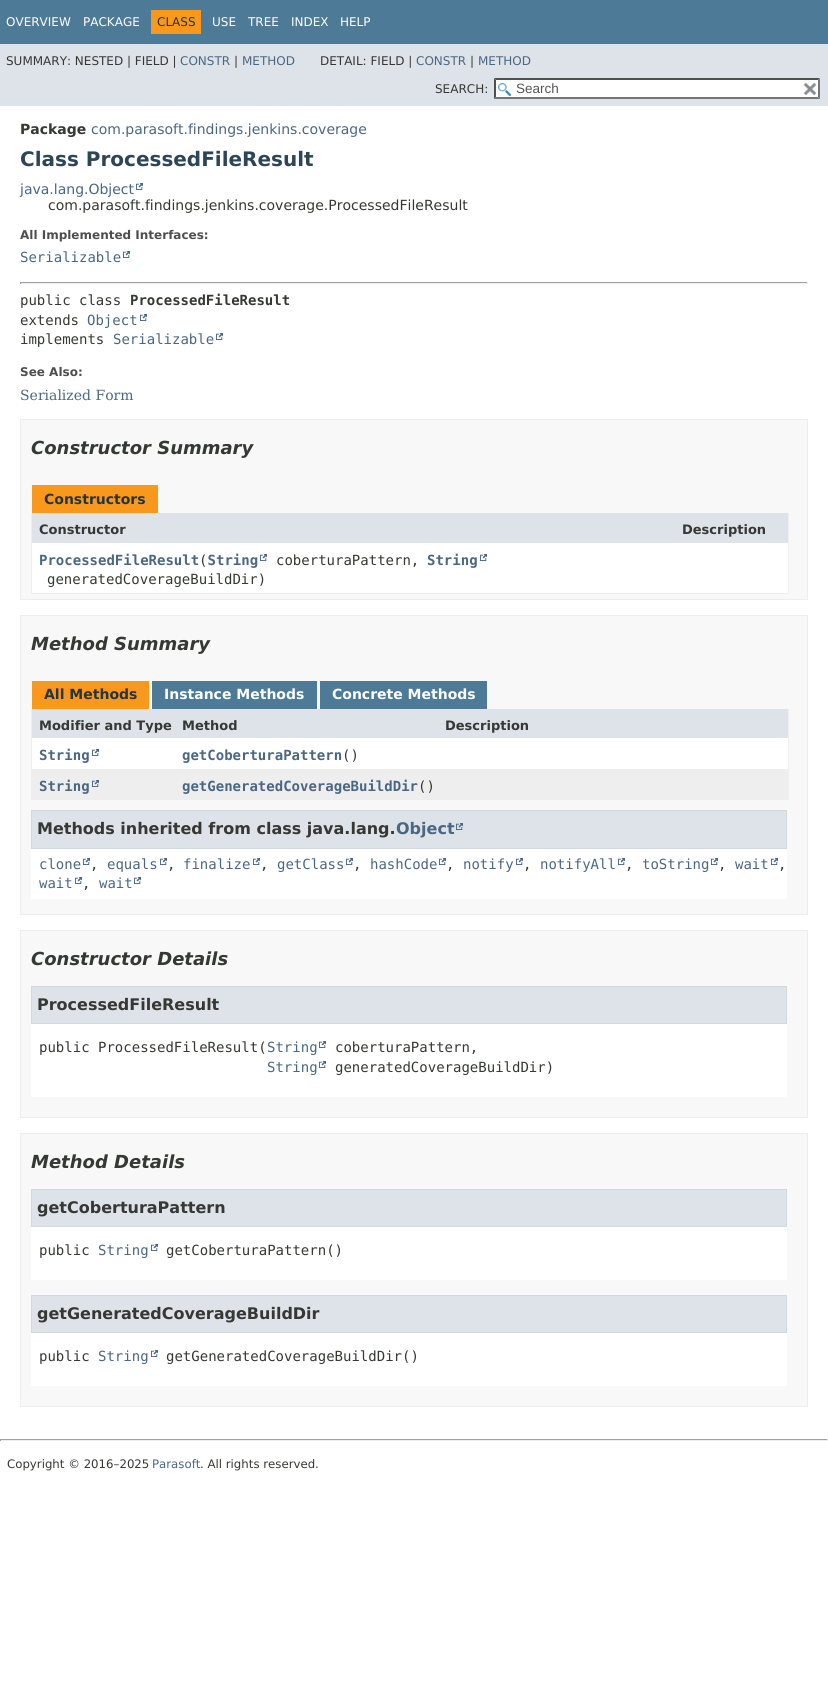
#include <cairo.h>
#include <math.h>
#include <stddef.h>


static void set_color(cairo_t *cr, unsigned color) {
    cairo_set_source_rgb(cr, (color >> 16) / 255.0, (color >> 8 & 255) / 255.0, (color & 255) / 255.0);
}

static void draw_text(cairo_t *cr, double x, double y, const char *s, const char *family, double size, int italic, int bold, unsigned color) {
    cairo_select_font_face(cr, family, italic ? CAIRO_FONT_SLANT_ITALIC : CAIRO_FONT_SLANT_NORMAL,
        bold ? CAIRO_FONT_WEIGHT_BOLD : CAIRO_FONT_WEIGHT_NORMAL);
    cairo_set_font_size(cr, size);
    set_color(cr, color);
    cairo_move_to(cr, x, y);
    cairo_show_text(cr, s);
}

static void fill_rect(cairo_t *cr, double x, double y, double w, double h, unsigned color) {
    set_color(cr, color);
    cairo_rectangle(cr, x, y, w, h);
    cairo_fill(cr);
}

static void draw_image(cairo_t *cr, const char *path, double x, double y, double w, double h) {
    cairo_surface_t *image = cairo_image_surface_create_from_png(path);
    cairo_save(cr);
    cairo_set_source_surface(cr, image, x, y);
    cairo_rectangle(cr, x, y, w, h);
    cairo_fill(cr);
    cairo_restore(cr);
    cairo_surface_destroy(image);
}

int main(void) {
    cairo_surface_t *surface = cairo_image_surface_create(CAIRO_FORMAT_RGB24, 828, 1690);
    cairo_t *cr = cairo_create(surface);
    cairo_font_options_t *options = cairo_font_options_create();
    cairo_font_options_set_hint_metrics(options, CAIRO_HINT_METRICS_OFF);
    cairo_font_options_set_hint_style(options, CAIRO_HINT_STYLE_NONE);
    cairo_set_font_options(cr, options);
    cairo_set_miter_limit(cr, 4);
    set_color(cr, 0xFFFFFF);
    cairo_paint(cr);
    fill_rect(cr, 0, 0, 828, 44, 0x4D7A97);
    draw_text(cr, 6, 26, "OVERVIEW", "DejaVu Sans", 12, 0, 0, 0xFFFFFF);
    draw_text(cr, 83, 26, "PACKAGE", "DejaVu Sans", 12, 0, 0, 0xFFFFFF);
    fill_rect(cr, 151, 10, 50, 24, 0xF8981D);
    draw_text(cr, 157, 26, "CLASS", "DejaVu Sans", 12, 0, 0, 0x253441);
    draw_text(cr, 212, 26, "USE", "DejaVu Sans", 12, 0, 0, 0xFFFFFF);
    draw_text(cr, 248, 26, "TREE", "DejaVu Sans", 12, 0, 0, 0xFFFFFF);
    draw_text(cr, 291, 26, "INDEX", "DejaVu Sans", 12, 0, 0, 0xFFFFFF);
    draw_text(cr, 340, 26, "HELP", "DejaVu Sans", 12, 0, 0, 0xFFFFFF);
    fill_rect(cr, 0, 44, 828, 62, 0xDEE3E9);
    draw_text(cr, 6, 65, "SUMMARY: NESTED | FIELD |", "DejaVu Sans", 12, 0, 0, 0x353833);
    draw_text(cr, 180, 65, "CONSTR", "DejaVu Sans", 12, 0, 0, 0x4A6782);
    draw_text(cr, 234, 65, "|", "DejaVu Sans", 12, 0, 0, 0x353833);
    draw_text(cr, 242, 65, "METHOD", "DejaVu Sans", 12, 0, 0, 0x4A6782);
    draw_text(cr, 320, 65, "DETAIL: FIELD |", "DejaVu Sans", 12, 0, 0, 0x353833);
    draw_text(cr, 416, 65, "CONSTR", "DejaVu Sans", 12, 0, 0, 0x4A6782);
    draw_text(cr, 470, 65, "|", "DejaVu Sans", 12, 0, 0, 0x353833);
    draw_text(cr, 478, 65, "METHOD", "DejaVu Sans", 12, 0, 0, 0x4A6782);
    draw_text(cr, 435, 93, "SEARCH:", "DejaVu Sans", 12, 0, 0, 0x353833);
    fill_rect(cr, 494, 78, 326, 21, 0xFFFFFF);
    draw_image(cr, "assets/img1.png", 498, 83, 13, 13);
    set_color(cr, 0x4F4F4F);
    cairo_new_path(cr);
    cairo_move_to(cr, 494, 78);
    cairo_line_to(cr, 820, 78);
    cairo_line_to(cr, 818, 80);
    cairo_line_to(cr, 496, 80);
    cairo_close_path(cr);
    cairo_fill(cr);
    set_color(cr, 0x767676);
    cairo_new_path(cr);
    cairo_move_to(cr, 820, 78);
    cairo_line_to(cr, 820, 99);
    cairo_line_to(cr, 818, 97);
    cairo_line_to(cr, 818, 80);
    cairo_close_path(cr);
    cairo_fill(cr);
    cairo_new_path(cr);
    cairo_move_to(cr, 820, 99);
    cairo_line_to(cr, 494, 99);
    cairo_line_to(cr, 496, 97);
    cairo_line_to(cr, 818, 97);
    cairo_close_path(cr);
    cairo_fill(cr);
    set_color(cr, 0x4F4F4F);
    cairo_new_path(cr);
    cairo_move_to(cr, 494, 99);
    cairo_line_to(cr, 494, 78);
    cairo_line_to(cr, 496, 80);
    cairo_line_to(cr, 496, 97);
    cairo_close_path(cr);
    cairo_fill(cr);
    draw_text(cr, 516, 93, "Search", "Liberation Sans", 13.5, 0, 0, 0x545454);
    draw_image(cr, "assets/img2.png", 803, 83, 14, 12);
    draw_text(cr, 20, 134, "Package", "DejaVu Sans", 14, 0, 1, 0x353833);
    draw_text(cr, 91, 134, "com.parasoft.findings.jenkins.coverage", "DejaVu Sans", 14, 0, 0, 0x4A6782);
    draw_text(cr, 20, 166, "Class ProcessedFileResult", "DejaVu Sans", 20, 0, 1, 0x2C4557);
    draw_text(cr, 20, 194, "java.lang.Object", "DejaVu Sans", 14, 0, 0, 0x4A6782);
    draw_image(cr, "assets/img3.png", 136, 183, 7, 7);
    draw_text(cr, 48, 210, "com.parasoft.findings.jenkins.coverage.ProcessedFileResult", "DejaVu Sans", 14, 0, 0, 0x353833);
    draw_text(cr, 20, 239, "All Implemented Interfaces:", "DejaVu Sans", 12, 0, 1, 0x4E4E4E);
    draw_text(cr, 20, 262, "Serializable", "DejaVu Sans Mono", 14, 0, 0, 0x4A6782);
    draw_image(cr, "assets/img3.png", 123, 251, 7, 7);
    fill_rect(cr, 20, 282, 788, 1, 0x9F9F9F);
    fill_rect(cr, 807, 282, 1, 2, 0xEEEEEE);
    fill_rect(cr, 20, 283, 788, 1, 0xEEEEEE);
    fill_rect(cr, 20, 282, 1, 2, 0x9F9F9F);
    draw_text(cr, 20, 305, "public class", "DejaVu Sans Mono", 14, 0, 0, 0x353833);
    draw_text(cr, 130, 305, "ProcessedFileResult", "DejaVu Sans Mono", 14, 0, 1, 0x353833);
    draw_text(cr, 20, 325, "extends", "DejaVu Sans Mono", 14, 0, 0, 0x353833);
    draw_text(cr, 87, 325, "Object", "DejaVu Sans Mono", 14, 0, 0, 0x4A6782);
    draw_image(cr, "assets/img3.png", 140, 314, 7, 7);
    draw_text(cr, 20, 344, "implements", "DejaVu Sans Mono", 14, 0, 0, 0x353833);
    draw_text(cr, 113, 344, "Serializable", "DejaVu Sans Mono", 14, 0, 0, 0x4A6782);
    draw_image(cr, "assets/img3.png", 216, 333, 7, 7);
    draw_text(cr, 20, 376, "See Also:", "DejaVu Sans", 12, 0, 1, 0x4E4E4E);
    draw_text(cr, 20, 400, "Serialized Form", "DejaVu Serif", 14, 0, 0, 0x4A6782);
    set_color(cr, 0xF8F8F8);
    cairo_rectangle(cr, 20.5, 419.5, 787, 180);
    cairo_fill_preserve(cr);
    set_color(cr, 0xEDEDED);
    cairo_set_line_width(cr, 1);
    cairo_stroke(cr);
    draw_text(cr, 31, 454, "Constructor Summary", "DejaVu Sans", 18, 1, 1, 0x353833);
    fill_rect(cr, 32, 485, 126, 28, 0xF8981D);
    draw_text(cr, 44, 504, "Constructors", "DejaVu Sans", 14, 0, 1, 0x253441);
    fill_rect(cr, 788, 513, 1, 81, 0xEEEEEE);
    fill_rect(cr, 31, 593, 758, 1, 0xEEEEEE);
    fill_rect(cr, 31, 513, 1, 81, 0xEEEEEE);
    fill_rect(cr, 32, 513, 756, 30, 0xDEE3E9);
    draw_text(cr, 39, 534, "Constructor", "DejaVu Sans", 13, 0, 1, 0x353833);
    draw_text(cr, 682, 534, "Description", "DejaVu Sans", 13, 0, 1, 0x353833);
    fill_rect(cr, 32, 543, 756, 50, 0xFFFFFF);
    draw_text(cr, 39, 565, "ProcessedFileResult String", "DejaVu Sans Mono", 14, 0, 1, 0x4A6782);
    draw_text(cr, 427, 565, "String", "DejaVu Sans Mono", 14, 0, 1, 0x4A6782);
    draw_image(cr, "assets/img3.png", 480, 554, 7, 7);
    draw_text(cr, 199, 565, "(", "DejaVu Sans Mono", 14, 0, 0, 0x353833);
    draw_image(cr, "assets/img3.png", 260, 554, 7, 7);
    draw_text(cr, 276, 565, "coberturaPattern,", "DejaVu Sans Mono", 14, 0, 0, 0x353833);
    draw_text(cr, 47, 584, "generatedCoverageBuildDir)", "DejaVu Sans Mono", 14, 0, 0, 0x353833);
    set_color(cr, 0xF8F8F8);
    cairo_rectangle(cr, 20.5, 615.5, 787, 299);
    cairo_fill_preserve(cr);
    set_color(cr, 0xEDEDED);
    cairo_stroke(cr);
    draw_text(cr, 31, 650, "Method Summary", "DejaVu Sans", 18, 1, 1, 0x353833);
    fill_rect(cr, 32, 681, 117, 28, 0xF8981D);
    draw_text(cr, 44, 699, "All Methods", "DejaVu Sans", 14, 0, 1, 0x253441);
    fill_rect(cr, 152, 681, 165, 28, 0x4D7A97);
    draw_text(cr, 164, 699, "Instance Methods", "DejaVu Sans", 14, 0, 1, 0xFFFFFF);
    fill_rect(cr, 320, 681, 167, 28, 0x4D7A97);
    draw_text(cr, 332, 699, "Concrete Methods", "DejaVu Sans", 14, 0, 1, 0xFFFFFF);
    fill_rect(cr, 788, 709, 1, 91, 0xEEEEEE);
    fill_rect(cr, 31, 799, 758, 1, 0xEEEEEE);
    fill_rect(cr, 31, 709, 1, 91, 0xEEEEEE);
    fill_rect(cr, 32, 709, 406, 29, 0xDEE3E9);
    draw_text(cr, 39, 730, "Modifier and Type", "DejaVu Sans", 13, 0, 1, 0x353833);
    draw_text(cr, 182, 730, "Method", "DejaVu Sans", 13, 0, 1, 0x353833);
    fill_rect(cr, 438, 709, 350, 29, 0xDEE3E9);
    draw_text(cr, 445, 730, "Description", "DejaVu Sans", 13, 0, 1, 0x353833);
    fill_rect(cr, 32, 738, 406, 31, 0xFFFFFF);
    draw_text(cr, 39, 760, "String", "DejaVu Sans Mono", 14, 0, 1, 0x4A6782);
    draw_image(cr, "assets/img3.png", 92, 749, 7, 7);
    draw_text(cr, 182, 760, "getCoberturaPattern", "DejaVu Sans Mono", 14, 0, 1, 0x4A6782);
    draw_text(cr, 342, 760, "()", "DejaVu Sans Mono", 14, 0, 0, 0x353833);
    fill_rect(cr, 438, 738, 350, 31, 0xFFFFFF);
    fill_rect(cr, 32, 769, 406, 30, 0xEEEEEF);
    draw_text(cr, 39, 791, "String", "DejaVu Sans Mono", 14, 0, 1, 0x4A6782);
    draw_image(cr, "assets/img4.png", 92, 780, 7, 7);
    draw_text(cr, 182, 791, "getGeneratedCoverageBuildDir", "DejaVu Sans Mono", 14, 0, 1, 0x4A6782);
    draw_text(cr, 418, 791, "()", "DejaVu Sans Mono", 14, 0, 0, 0x353833);
    fill_rect(cr, 438, 769, 350, 30, 0xEEEEEF);
    fill_rect(cr, 31, 849, 756, 50, 0xFFFFFF);
    set_color(cr, 0xDEE3E9);
    cairo_rectangle(cr, 31.5, 810.5, 755, 38);
    cairo_fill_preserve(cr);
    set_color(cr, 0xD0D9E0);
    cairo_stroke(cr);
    draw_text(cr, 37, 834, "Methods inherited from class java.lang.", "DejaVu Sans", 16, 0, 1, 0x353833);
    draw_text(cr, 396, 834, "Object", "DejaVu Sans", 16, 0, 1, 0x4A6782);
    draw_image(cr, "assets/img5.png", 456, 823, 7, 7);
    draw_text(cr, 39, 869, "clone", "DejaVu Sans Mono", 14, 0, 0, 0x4A6782);
    draw_image(cr, "assets/img3.png", 83, 858, 7, 7);
    draw_text(cr, 90, 869, ",", "DejaVu Sans Mono", 14, 0, 0, 0x353833);
    draw_text(cr, 107, 869, "equals", "DejaVu Sans Mono", 14, 0, 0, 0x4A6782);
    draw_image(cr, "assets/img3.png", 160, 858, 7, 7);
    draw_text(cr, 167, 869, ",", "DejaVu Sans Mono", 14, 0, 0, 0x353833);
    draw_text(cr, 183, 869, "finalize", "DejaVu Sans Mono", 14, 0, 0, 0x4A6782);
    draw_image(cr, "assets/img3.png", 253, 858, 7, 7);
    draw_text(cr, 260, 869, ",", "DejaVu Sans Mono", 14, 0, 0, 0x353833);
    draw_text(cr, 277, 869, "getClass", "DejaVu Sans Mono", 14, 0, 0, 0x4A6782);
    draw_image(cr, "assets/img3.png", 346, 858, 7, 7);
    draw_text(cr, 353, 869, ",", "DejaVu Sans Mono", 14, 0, 0, 0x353833);
    draw_text(cr, 370, 869, "hashCode", "DejaVu Sans Mono", 14, 0, 0, 0x4A6782);
    draw_image(cr, "assets/img3.png", 439, 858, 7, 7);
    draw_text(cr, 446, 869, ",", "DejaVu Sans Mono", 14, 0, 0, 0x353833);
    draw_text(cr, 463, 869, "notify", "DejaVu Sans Mono", 14, 0, 0, 0x4A6782);
    draw_image(cr, "assets/img3.png", 516, 858, 7, 7);
    draw_text(cr, 523, 869, ",", "DejaVu Sans Mono", 14, 0, 0, 0x353833);
    draw_text(cr, 540, 869, "notifyAll", "DejaVu Sans Mono", 14, 0, 0, 0x4A6782);
    draw_image(cr, "assets/img3.png", 618, 858, 7, 7);
    draw_text(cr, 625, 869, ",", "DejaVu Sans Mono", 14, 0, 0, 0x353833);
    draw_text(cr, 642, 869, "toString", "DejaVu Sans Mono", 14, 0, 0, 0x4A6782);
    draw_image(cr, "assets/img3.png", 711, 858, 7, 7);
    draw_text(cr, 718, 869, ",", "DejaVu Sans Mono", 14, 0, 0, 0x353833);
    draw_text(cr, 735, 869, "wait", "DejaVu Sans Mono", 14, 0, 0, 0x4A6782);
    draw_image(cr, "assets/img3.png", 771, 858, 7, 7);
    draw_text(cr, 778, 869, ",", "DejaVu Sans Mono", 14, 0, 0, 0x353833);
    draw_text(cr, 39, 888, "wait", "DejaVu Sans Mono", 14, 0, 0, 0x4A6782);
    draw_image(cr, "assets/img3.png", 75, 877, 7, 7);
    draw_text(cr, 82, 888, ",", "DejaVu Sans Mono", 14, 0, 0, 0x353833);
    draw_text(cr, 99, 888, "wait", "DejaVu Sans Mono", 14, 0, 0, 0x4A6782);
    draw_image(cr, "assets/img3.png", 134, 877, 7, 7);
    set_color(cr, 0xF8F8F8);
    cairo_rectangle(cr, 20.5, 930.5, 787, 187);
    cairo_fill_preserve(cr);
    set_color(cr, 0xEDEDED);
    cairo_stroke(cr);
    draw_text(cr, 31, 965, "Constructor Details", "DejaVu Sans", 18, 1, 1, 0x353833);
    fill_rect(cr, 31, 1024, 756, 73, 0xFFFFFF);
    set_color(cr, 0xDEE3E9);
    cairo_rectangle(cr, 31.5, 986.5, 755, 37);
    cairo_fill_preserve(cr);
    set_color(cr, 0xD0D9E0);
    cairo_stroke(cr);
    draw_text(cr, 37, 1010, "ProcessedFileResult", "DejaVu Sans", 16, 0, 1, 0x353833);
    draw_text(cr, 39, 1052, "public ProcessedFileResult(", "DejaVu Sans Mono", 14, 0, 0, 0x353833);
    draw_text(cr, 267, 1052, "String", "DejaVu Sans Mono", 14, 0, 0, 0x4A6782);
    draw_image(cr, "assets/img3.png", 319, 1041, 7, 7);
    draw_text(cr, 335, 1052, "coberturaPattern,", "DejaVu Sans Mono", 14, 0, 0, 0x353833);
    draw_text(cr, 267, 1072, "String", "DejaVu Sans Mono", 14, 0, 0, 0x4A6782);
    draw_image(cr, "assets/img3.png", 319, 1061, 7, 7);
    draw_text(cr, 335, 1072, "generatedCoverageBuildDir)", "DejaVu Sans Mono", 14, 0, 0, 0x353833);
    set_color(cr, 0xF8F8F8);
    cairo_rectangle(cr, 20.5, 1133.5, 787, 273);
    cairo_fill_preserve(cr);
    set_color(cr, 0xEDEDED);
    cairo_stroke(cr);
    draw_text(cr, 31, 1168, "Method Details", "DejaVu Sans", 18, 1, 1, 0x353833);
    fill_rect(cr, 31, 1227, 756, 53, 0xFFFFFF);
    set_color(cr, 0xDEE3E9);
    cairo_rectangle(cr, 31.5, 1189.5, 755, 37);
    cairo_fill_preserve(cr);
    set_color(cr, 0xD0D9E0);
    cairo_stroke(cr);
    draw_text(cr, 37, 1213, "getCoberturaPattern", "DejaVu Sans", 16, 0, 1, 0x353833);
    draw_text(cr, 39, 1255, "public", "DejaVu Sans Mono", 14, 0, 0, 0x353833);
    draw_text(cr, 98, 1255, "String", "DejaVu Sans Mono", 14, 0, 0, 0x4A6782);
    draw_image(cr, "assets/img3.png", 151, 1244, 7, 7);
    draw_text(cr, 166, 1255, "getCoberturaPattern()", "DejaVu Sans Mono", 14, 0, 0, 0x353833);
    fill_rect(cr, 31, 1333, 756, 53, 0xFFFFFF);
    set_color(cr, 0xDEE3E9);
    cairo_rectangle(cr, 31.5, 1295.5, 755, 37);
    cairo_fill_preserve(cr);
    set_color(cr, 0xD0D9E0);
    cairo_stroke(cr);
    draw_text(cr, 37, 1319, "getGeneratedCoverageBuildDir", "DejaVu Sans", 16, 0, 1, 0x353833);
    draw_text(cr, 39, 1361, "public", "DejaVu Sans Mono", 14, 0, 0, 0x353833);
    draw_text(cr, 98, 1361, "String", "DejaVu Sans Mono", 14, 0, 0, 0x4A6782);
    draw_image(cr, "assets/img3.png", 151, 1350, 7, 7);
    draw_text(cr, 166, 1361, "getGeneratedCoverageBuildDir()", "DejaVu Sans Mono", 14, 0, 0, 0x353833);
    fill_rect(cr, 0, 1439, 828, 1, 0x9F9F9F);
    fill_rect(cr, 827, 1439, 1, 2, 0xEEEEEE);
    fill_rect(cr, 0, 1440, 828, 1, 0xEEEEEE);
    fill_rect(cr, 0, 1439, 1, 2, 0x9F9F9F);
    draw_text(cr, 7, 1468, "Copyright © 2016–2025", "DejaVu Sans", 11.75, 0, 0, 0x353833);
    draw_text(cr, 152, 1468, "Parasoft", "DejaVu Sans", 11.75, 0, 0, 0x4A6782);
    draw_text(cr, 200, 1468, ". All rights reserved.", "DejaVu Sans", 11.75, 0, 0, 0x353833);
    cairo_surface_write_to_png(surface, "output.png");
    cairo_font_options_destroy(options);
    cairo_destroy(cr);
    cairo_surface_destroy(surface);
    return 0;
}
